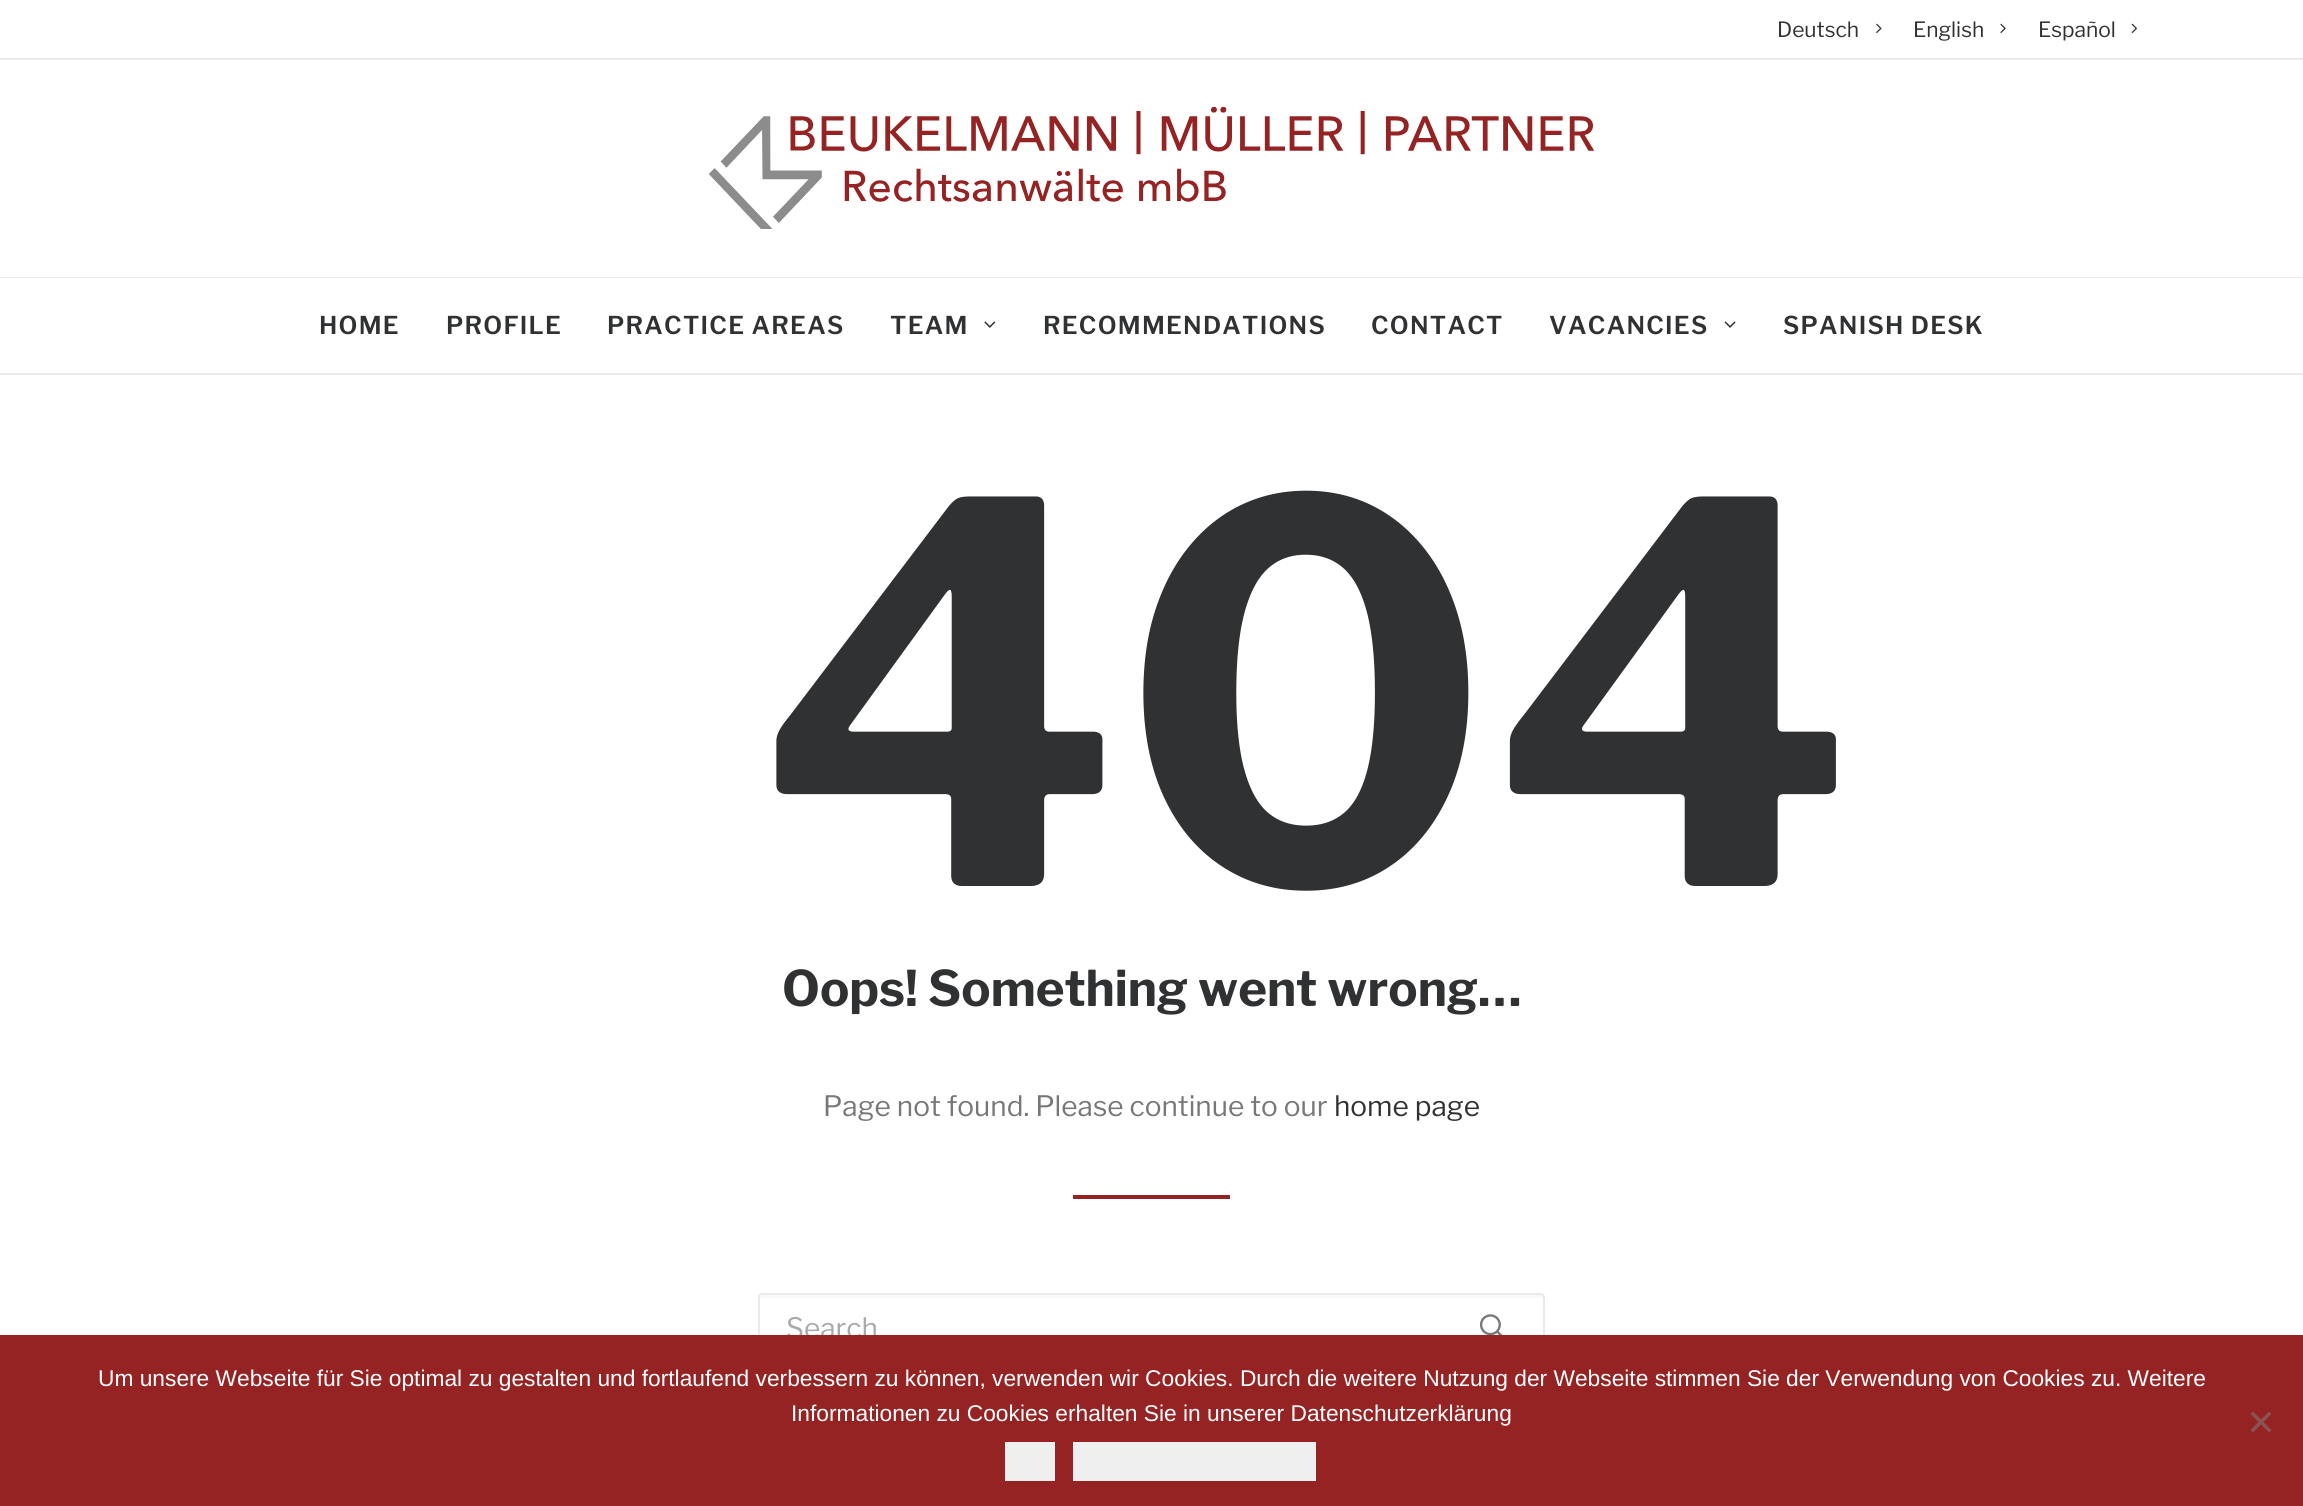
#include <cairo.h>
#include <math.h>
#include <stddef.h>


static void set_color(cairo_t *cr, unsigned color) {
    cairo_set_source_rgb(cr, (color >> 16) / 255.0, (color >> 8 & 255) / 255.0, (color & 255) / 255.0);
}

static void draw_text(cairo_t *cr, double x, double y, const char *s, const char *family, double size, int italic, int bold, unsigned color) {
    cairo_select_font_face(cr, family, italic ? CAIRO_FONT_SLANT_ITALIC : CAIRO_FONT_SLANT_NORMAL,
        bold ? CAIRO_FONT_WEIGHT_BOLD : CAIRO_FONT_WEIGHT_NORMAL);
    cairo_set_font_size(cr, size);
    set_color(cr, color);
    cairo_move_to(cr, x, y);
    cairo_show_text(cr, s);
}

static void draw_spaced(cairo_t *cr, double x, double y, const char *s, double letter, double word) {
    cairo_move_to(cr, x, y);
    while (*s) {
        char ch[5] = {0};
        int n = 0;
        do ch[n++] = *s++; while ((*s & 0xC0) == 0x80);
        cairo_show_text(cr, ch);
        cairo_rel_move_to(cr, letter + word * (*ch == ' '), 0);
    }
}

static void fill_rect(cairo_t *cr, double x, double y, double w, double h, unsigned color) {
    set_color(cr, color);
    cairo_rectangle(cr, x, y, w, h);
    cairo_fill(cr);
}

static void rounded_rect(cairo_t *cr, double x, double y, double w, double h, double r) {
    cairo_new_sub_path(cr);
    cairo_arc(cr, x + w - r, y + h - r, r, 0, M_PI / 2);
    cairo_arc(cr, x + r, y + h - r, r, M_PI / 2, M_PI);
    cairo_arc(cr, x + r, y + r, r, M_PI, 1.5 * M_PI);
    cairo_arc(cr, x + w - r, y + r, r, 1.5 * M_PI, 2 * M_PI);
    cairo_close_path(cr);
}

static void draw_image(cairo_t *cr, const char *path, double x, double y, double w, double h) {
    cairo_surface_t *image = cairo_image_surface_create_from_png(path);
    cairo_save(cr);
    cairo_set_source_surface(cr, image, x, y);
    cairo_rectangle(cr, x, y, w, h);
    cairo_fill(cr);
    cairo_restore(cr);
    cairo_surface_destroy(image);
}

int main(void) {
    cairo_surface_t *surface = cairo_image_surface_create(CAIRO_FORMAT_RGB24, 2303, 1506);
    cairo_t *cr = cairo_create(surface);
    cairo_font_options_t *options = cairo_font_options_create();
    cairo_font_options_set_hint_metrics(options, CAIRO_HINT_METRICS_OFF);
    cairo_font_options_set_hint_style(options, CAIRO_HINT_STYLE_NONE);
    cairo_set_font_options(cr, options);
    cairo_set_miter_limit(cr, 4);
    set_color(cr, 0xFFFFFF);
    cairo_paint(cr);
    draw_text(cr, 1777, 37, "Deutsch", "Libre Franklin", 21, 0, 0, 0x303133);
    draw_image(cr, "assets/img1.png", 1876, 23, 6, 10);
    draw_text(cr, 1913, 37, "English", "Libre Franklin", 21, 0, 0, 0x303133);
    draw_image(cr, "assets/img2.png", 2000, 23, 6, 10);
    draw_text(cr, 2038, 37, "Español", "Libre Franklin", 21, 0, 0, 0x303133);
    draw_image(cr, "assets/img3.png", 2131, 23, 6, 10);
    fill_rect(cr, 0, 58, 2303, 2, 0xEAEAEA);
    draw_image(cr, "assets/img4.png", 709, 107, 885, 122);
    fill_rect(cr, 0, 277, 2303, 1, 0xEAEAEA);
    fill_rect(cr, 0, 373, 2303, 2, 0xEAEAEA);
    cairo_select_font_face(cr, "Libre Franklin SemiBold", CAIRO_FONT_SLANT_NORMAL, CAIRO_FONT_WEIGHT_NORMAL);
    cairo_set_font_size(cr, 24.5);
    set_color(cr, 0x303133);
    draw_spaced(cr, 319, 334, "HOME", 1.25, 0);
    draw_spaced(cr, 446, 334, "PROFILE", 1.25, 0);
    draw_spaced(cr, 607, 334, "PRACTICE AREAS", 1.25, 0);
    draw_spaced(cr, 890, 334, "TEAM", 1.25, 0);
    draw_image(cr, "assets/img5.png", 984, 321, 12, 7);
    draw_spaced(cr, 1043, 334, "RECOMMENDATIONS", 1.25, 0);
    draw_spaced(cr, 1371, 334, "CONTACT", 1.25, 0);
    draw_spaced(cr, 1549, 334, "VACANCIES", 1.25, 0);
    draw_image(cr, "assets/img6.png", 1724, 321, 12, 7);
    draw_spaced(cr, 1783, 334, "SPANISH DESK", 1.25, 0);
    draw_text(cr, 758, 886, "404", "Libre Franklin", 525, 0, 1, 0x303133);
    draw_text(cr, 782, 1006, "Oops! Something went wrong…", "Libre Franklin", 49, 0, 1, 0x303133);
    draw_text(cr, 823, 1116, "Page not found. Please continue to our", "Libre Franklin", 28, 0, 0, 0x777777);
    draw_text(cr, 1334, 1116, "home page", "Libre Franklin", 28, 0, 0, 0x303133);
    fill_rect(cr, 1073, 1195, 157, 4, 0x952323);
    set_color(cr, 0xF9F9F9);
    cairo_new_path(cr);
    cairo_move_to(cr, 761, 1298);
    cairo_line_to(cr, 1542, 1298);
    cairo_curve_to(cr, 1543, 1298, 1544, 1299, 1544, 1300);
    cairo_line_to(cr, 1544, 1296);
    cairo_line_to(cr, 1543, 1295);
    cairo_line_to(cr, 762, 1295);
    cairo_curve_to(cr, 759, 1295, 760, 1298, 760, 1300);
    cairo_curve_to(cr, 760, 1299, 760, 1298, 761, 1298);
    cairo_close_path(cr);
    cairo_fill(cr);
    rounded_rect(cr, 759, 1294, 785, 70, 3);
    set_color(cr, 0xEAEAEA);
    cairo_stroke(cr);
    draw_text(cr, 786, 1338, "Search", "Libre Franklin", 28, 0, 0, 0xA9A9A9);
    draw_image(cr, "assets/img7.png", 1479, 1314, 24, 21);
    fill_rect(cr, 0, 1335, 2303, 171, 0x952323);
    draw_text(cr, 98, 1386, "Um unsere Webseite für Sie optimal zu gestalten und fortlaufend verbessern zu können, verwenden wir Cookies. Durch die weitere Nutzung der Webseite stimmen Sie der Verwendung von Cookies zu. Weitere", "Liberation Sans", 22.75, 0, 0, 0xFFFFFF);
    draw_text(cr, 791, 1421, "Informationen zu Cookies erhalten Sie in unserer Datenschutzerklärung", "Liberation Sans", 22.75, 0, 0, 0xFFFFFF);
    set_color(cr, 0x8B5252);
    cairo_new_path(cr);
    cairo_move_to(cr, 2269, 1411.5);
    cairo_line_to(cr, 2271.5, 1414);
    cairo_line_to(cr, 2253, 1432.5);
    cairo_line_to(cr, 2250.5, 1430);
    cairo_close_path(cr);
    cairo_fill(cr);
    cairo_new_path(cr);
    cairo_move_to(cr, 2250.5, 1414);
    cairo_line_to(cr, 2253, 1411.5);
    cairo_line_to(cr, 2271.5, 1430);
    cairo_line_to(cr, 2269, 1432.5);
    cairo_close_path(cr);
    cairo_fill(cr);
    fill_rect(cr, 1005, 1442, 50, 39, 0xEFEFEF);
    fill_rect(cr, 1073, 1442, 243, 39, 0xEFEFEF);
    cairo_surface_write_to_png(surface, "output.png");
    cairo_font_options_destroy(options);
    cairo_destroy(cr);
    cairo_surface_destroy(surface);
    return 0;
}
